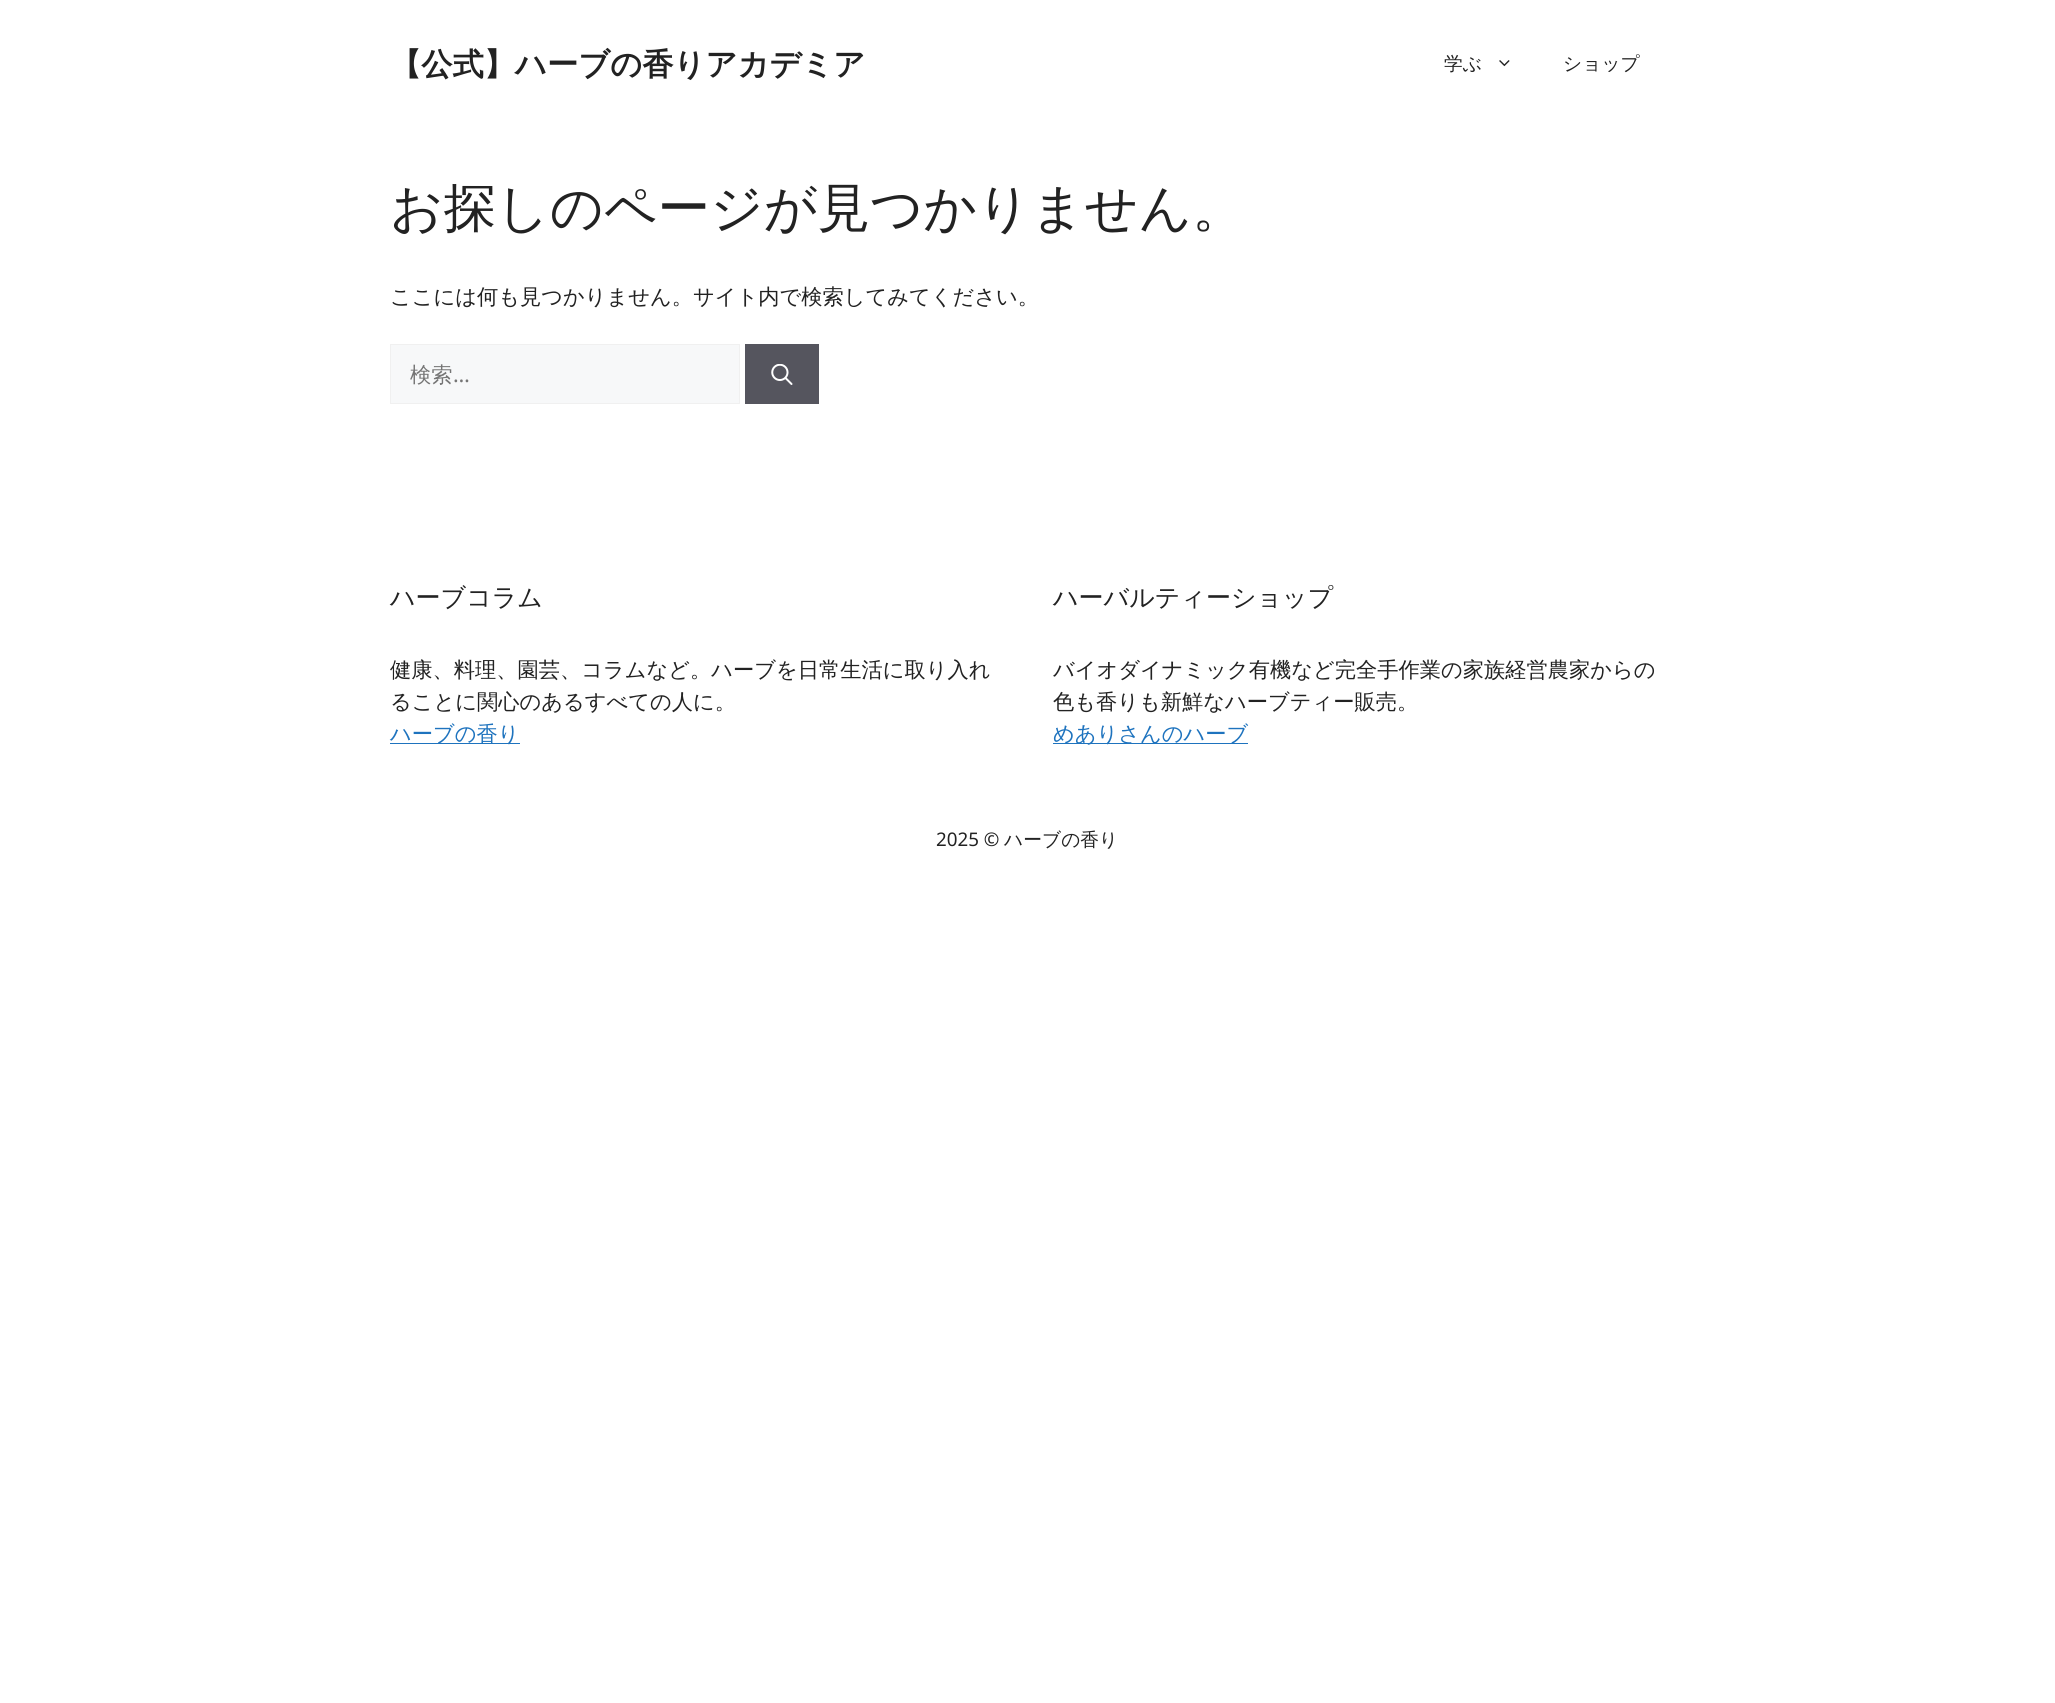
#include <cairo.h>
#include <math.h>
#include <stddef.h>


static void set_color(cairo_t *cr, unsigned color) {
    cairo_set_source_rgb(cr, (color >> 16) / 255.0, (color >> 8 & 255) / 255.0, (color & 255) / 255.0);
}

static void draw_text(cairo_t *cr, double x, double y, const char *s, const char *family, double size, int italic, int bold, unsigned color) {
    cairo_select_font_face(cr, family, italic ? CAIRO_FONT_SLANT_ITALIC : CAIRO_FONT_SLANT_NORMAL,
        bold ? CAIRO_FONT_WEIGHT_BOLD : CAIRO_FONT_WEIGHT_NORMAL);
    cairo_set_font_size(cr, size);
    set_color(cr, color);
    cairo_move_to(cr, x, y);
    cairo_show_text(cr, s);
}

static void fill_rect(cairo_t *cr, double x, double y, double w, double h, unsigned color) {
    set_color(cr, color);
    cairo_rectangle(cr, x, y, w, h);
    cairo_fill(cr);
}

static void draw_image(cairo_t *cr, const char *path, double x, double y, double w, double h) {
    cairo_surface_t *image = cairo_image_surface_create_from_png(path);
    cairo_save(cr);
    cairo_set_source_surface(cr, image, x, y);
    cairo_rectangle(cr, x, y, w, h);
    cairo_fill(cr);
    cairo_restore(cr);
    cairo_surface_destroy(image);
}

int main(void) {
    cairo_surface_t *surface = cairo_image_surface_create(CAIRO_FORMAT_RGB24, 2055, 1703);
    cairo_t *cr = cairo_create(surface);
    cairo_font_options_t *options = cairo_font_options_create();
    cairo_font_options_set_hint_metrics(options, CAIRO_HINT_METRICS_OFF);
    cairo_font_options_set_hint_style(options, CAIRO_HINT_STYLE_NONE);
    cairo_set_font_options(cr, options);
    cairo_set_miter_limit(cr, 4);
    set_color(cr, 0xFFFFFF);
    cairo_paint(cr);
    draw_text(cr, 390, 75, "【公式】ハーブの香りアカデミア", "WenQuanYi Zen Hei", 31.25, 0, 1, 0x222222);
    draw_text(cr, 1444, 70, "学ぶ", "WenQuanYi Zen Hei Medium", 18.75, 0, 0, 0x222222);
    draw_image(cr, "assets/img1.png", 1499, 60, 11, 7);
    draw_text(cr, 1563, 70, "ショップ", "WenQuanYi Zen Hei Medium", 18.75, 0, 0, 0x222222);
    draw_text(cr, 390, 226, "お探しのページが見つかりません。", "WenQuanYi Zen Hei Medium", 52.5, 0, 0, 0x222222);
    draw_text(cr, 390, 304, "ここには何も見つかりません。サイト内で検索してみてください。", "WenQuanYi Zen Hei Medium", 21.25, 0, 0, 0x222222);
    set_color(cr, 0xF7F8F9);
    cairo_rectangle(cr, 390.5, 344.5, 349, 59);
    cairo_fill_preserve(cr);
    set_color(cr, 0xF0F0F0);
    cairo_set_line_width(cr, 1);
    cairo_stroke(cr);
    draw_text(cr, 410, 382, "検索", "WenQuanYi Zen Hei Medium", 21.25, 0, 0, 0x757575);
    draw_text(cr, 453, 382, "…", "Noto Sans", 21.25, 0, 0, 0x757575);
    fill_rect(cr, 745, 344, 74, 60, 0x55555E);
    draw_image(cr, "assets/img2.png", 771, 364, 22, 21);
    draw_text(cr, 390, 606, "ハーブコラム", "WenQuanYi Zen Hei Medium", 25, 0, 0, 0x222222);
    draw_text(cr, 390, 677, "健康、料理、園芸、コラムなど。ハーブを日常生活に取り入れ", "WenQuanYi Zen Hei Medium", 21.25, 0, 0, 0x222222);
    draw_text(cr, 390, 709, "ることに関心のあるすべての人に。", "WenQuanYi Zen Hei Medium", 21.25, 0, 0, 0x222222);
    fill_rect(cr, 390, 743, 130, 1, 0x1E73BE);
    draw_text(cr, 390, 741, "ハーブの香り", "WenQuanYi Zen Hei Medium", 21.25, 0, 0, 0x1E73BE);
    draw_text(cr, 1053, 606, "ハーバルティーショップ", "WenQuanYi Zen Hei Medium", 25, 0, 0, 0x222222);
    draw_text(cr, 1053, 677, "バイオダイナミック有機など完全手作業の家族経営農家からの", "WenQuanYi Zen Hei Medium", 21.25, 0, 0, 0x222222);
    draw_text(cr, 1053, 709, "色も香りも新鮮なハーブティー販売。", "WenQuanYi Zen Hei Medium", 21.25, 0, 0, 0x222222);
    fill_rect(cr, 1053, 743, 195, 1, 0x1E73BE);
    draw_text(cr, 1053, 741, "めありさんのハーブ", "WenQuanYi Zen Hei Medium", 21.25, 0, 0, 0x1E73BE);
    draw_text(cr, 936, 846, "2025 ©", "Noto Sans", 18.75, 0, 0, 0x222222);
    draw_text(cr, 1004, 846, "ハーブの香り", "WenQuanYi Zen Hei Medium", 18.75, 0, 0, 0x222222);
    cairo_surface_write_to_png(surface, "output.png");
    cairo_font_options_destroy(options);
    cairo_destroy(cr);
    cairo_surface_destroy(surface);
    return 0;
}
